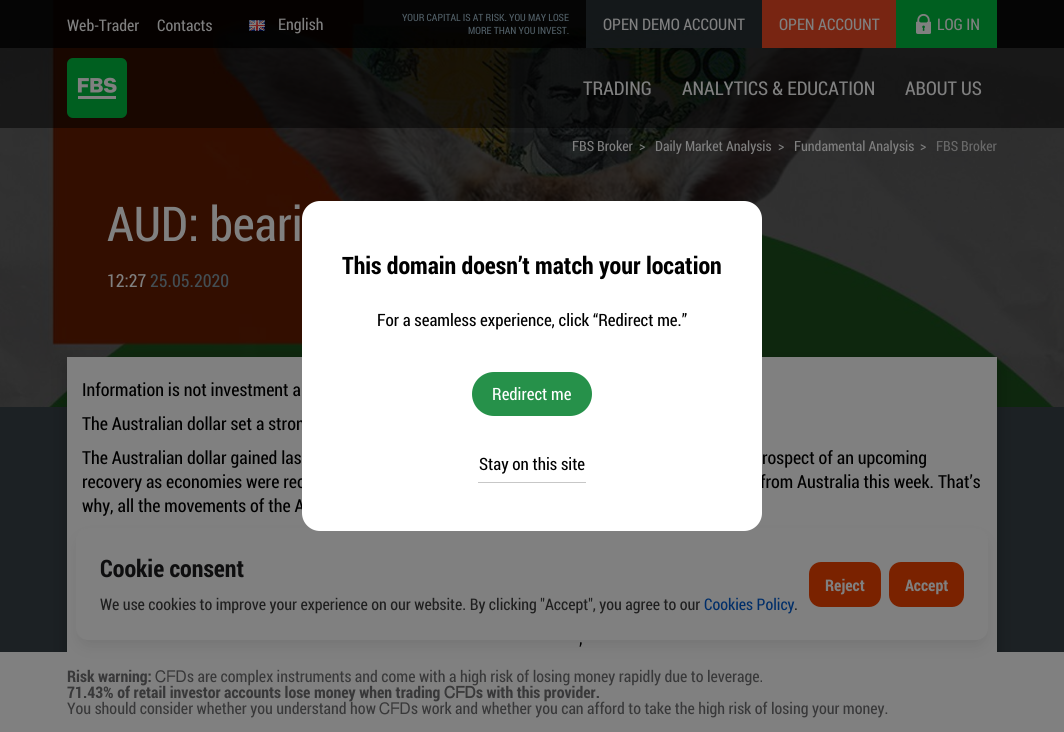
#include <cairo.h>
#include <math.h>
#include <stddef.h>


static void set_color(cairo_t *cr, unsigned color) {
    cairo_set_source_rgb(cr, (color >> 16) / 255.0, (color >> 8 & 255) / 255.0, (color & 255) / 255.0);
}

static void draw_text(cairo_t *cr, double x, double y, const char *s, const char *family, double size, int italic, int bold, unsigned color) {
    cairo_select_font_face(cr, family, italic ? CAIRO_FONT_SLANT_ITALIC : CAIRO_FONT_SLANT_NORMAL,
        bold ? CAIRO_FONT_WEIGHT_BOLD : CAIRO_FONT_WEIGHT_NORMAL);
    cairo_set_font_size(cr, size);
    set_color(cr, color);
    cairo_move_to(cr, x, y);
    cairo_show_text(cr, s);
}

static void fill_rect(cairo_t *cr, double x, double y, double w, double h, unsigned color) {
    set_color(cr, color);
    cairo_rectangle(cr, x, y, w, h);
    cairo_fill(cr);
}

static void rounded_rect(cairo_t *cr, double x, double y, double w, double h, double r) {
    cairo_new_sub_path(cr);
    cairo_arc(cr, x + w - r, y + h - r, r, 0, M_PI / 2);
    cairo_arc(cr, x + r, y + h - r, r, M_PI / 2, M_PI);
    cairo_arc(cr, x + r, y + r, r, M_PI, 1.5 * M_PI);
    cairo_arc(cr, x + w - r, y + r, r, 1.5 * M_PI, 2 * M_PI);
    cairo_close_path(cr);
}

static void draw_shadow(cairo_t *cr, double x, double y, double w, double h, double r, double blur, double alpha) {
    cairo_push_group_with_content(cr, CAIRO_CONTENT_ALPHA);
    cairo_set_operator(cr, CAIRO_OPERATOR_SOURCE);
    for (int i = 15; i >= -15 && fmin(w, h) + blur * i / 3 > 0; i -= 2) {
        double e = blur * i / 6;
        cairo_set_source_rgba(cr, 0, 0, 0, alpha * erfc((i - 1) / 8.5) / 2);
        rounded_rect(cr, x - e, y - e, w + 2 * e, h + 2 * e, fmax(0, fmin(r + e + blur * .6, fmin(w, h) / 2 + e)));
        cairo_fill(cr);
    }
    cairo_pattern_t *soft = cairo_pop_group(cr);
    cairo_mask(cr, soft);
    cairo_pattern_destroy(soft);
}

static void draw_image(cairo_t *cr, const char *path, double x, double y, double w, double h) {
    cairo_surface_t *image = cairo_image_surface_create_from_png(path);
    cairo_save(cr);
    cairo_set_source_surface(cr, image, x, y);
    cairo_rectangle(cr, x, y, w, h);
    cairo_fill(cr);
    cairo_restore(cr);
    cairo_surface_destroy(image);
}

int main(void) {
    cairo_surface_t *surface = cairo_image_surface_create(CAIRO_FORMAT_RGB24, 1064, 732);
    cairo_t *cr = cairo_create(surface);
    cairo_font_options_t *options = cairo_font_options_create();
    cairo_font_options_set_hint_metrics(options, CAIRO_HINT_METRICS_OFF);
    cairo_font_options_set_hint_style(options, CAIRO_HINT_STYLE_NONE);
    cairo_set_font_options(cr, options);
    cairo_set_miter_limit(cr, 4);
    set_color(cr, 0x1C2124);
    cairo_paint(cr);
    draw_image(cr, "assets/img4.png", 0, 0, 1064, 407);
    cairo_set_source_rgba(cr, 0, 0, 0, 0.9);
    cairo_rectangle(cr, 0, 0, 1064, 48);
    cairo_fill(cr);
    draw_text(cr, 67, 31, "Web-Trader", "Roboto Condensed", 16, 0, 0, 0x808080);
    draw_text(cr, 157, 31, "Contacts", "Roboto Condensed", 16, 0, 0, 0x808080);
    draw_image(cr, "assets/img1.png", 249, 20, 16, 11);
    draw_text(cr, 278, 30, "English", "Roboto Condensed", 16, 0, 0, 0x808080);
    draw_text(cr, 402, 21, "YOUR CAPITAL IS AT RISK. YOU MAY LOSE", "Roboto Condensed", 10, 0, 0, 0x515F67);
    draw_text(cr, 468, 34, "MORE THAN YOU INVEST.", "Roboto Condensed", 10, 0, 0, 0x515F67);
    cairo_set_source_rgba(cr, 0.11, 0.129, 0.141, 0.7);
    cairo_rectangle(cr, 586, 0, 176, 48);
    cairo_fill(cr);
    draw_text(cr, 603, 30, "OPEN DEMO ACCOUNT", "Roboto Condensed", 16, 0, 0, 0x808080);
    fill_rect(cr, 762, 0, 134, 48, 0x782512);
    draw_text(cr, 779, 30, "OPEN ACCOUNT", "Roboto Condensed", 16, 0, 0, 0x808080);
    fill_rect(cr, 896, 0, 101, 48, 0x005F20);
    draw_image(cr, "assets/img2.png", 916, 14, 15, 20);
    draw_text(cr, 937, 30, "LOG IN", "Roboto Condensed", 16, 0, 0, 0x808080);
    cairo_set_source_rgba(cr, 0, 0, 0, 0.5);
    cairo_rectangle(cr, 0, 48, 1064, 80);
    cairo_fill(cr);
    draw_image(cr, "assets/img3.png", 67, 58, 60, 60);
    draw_text(cr, 583, 95, "TRADING", "Roboto Condensed", 19, 0, 0, 0x808080);
    draw_text(cr, 682, 95, "ANALYTICS & EDUCATION", "Roboto Condensed", 19, 0, 0, 0x808080);
    draw_text(cr, 905, 95, "ABOUT US", "Roboto Condensed", 19, 0, 0, 0x808080);
    draw_text(cr, 572, 151, "FBS Broker", "Roboto Condensed", 14, 0, 0, 0x808080);
    draw_text(cr, 639, 151, ">", "Roboto Condensed", 14, 0, 0, 0x808080);
    draw_text(cr, 655, 151, "Daily Market Analysis", "Roboto Condensed", 14, 0, 0, 0x808080);
    draw_text(cr, 778, 151, ">", "Roboto Condensed", 14, 0, 0, 0x808080);
    draw_text(cr, 794, 151, "Fundamental Analysis", "Roboto Condensed", 14, 0, 0, 0x808080);
    draw_text(cr, 920, 151, ">", "Roboto Condensed", 14, 0, 0, 0x808080);
    draw_text(cr, 936, 151, "FBS Broker", "Roboto Condensed", 14, 0, 0, 0x696969);
    draw_text(cr, 107, 241, "AUD: beari", "Roboto Condensed", 48, 0, 0, 0x808080);
    draw_text(cr, 107, 287, "12:27", "Roboto Condensed", 18, 0, 0, 0x808080);
    draw_text(cr, 150, 287, "25.05.2020", "Roboto Condensed", 18, 0, 0, 0x434E54);
    set_color(cr, 0x000000);
    draw_shadow(cr, 67, 366, 930, 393, 0, 9, 0.25);
    fill_rect(cr, 67, 357, 930, 295, 0x808080);
    draw_text(cr, 82, 396, "Information is not investment a", "Roboto Condensed", 18, 0, 0, 0x000000);
    draw_text(cr, 82, 430, "The Australian dollar set a stron", "Roboto Condensed", 18, 0, 0, 0x000000);
    draw_text(cr, 82, 464, "The Australian dollar gained las", "Roboto Condensed", 18, 0, 0, 0x000000);
    draw_text(cr, 762, 464, "rospect of an upcoming", "Roboto Condensed", 18, 0, 0, 0x000000);
    draw_text(cr, 82, 488, "recovery as economies were reo", "Roboto Condensed", 18, 0, 0, 0x000000);
    draw_text(cr, 760, 488, "from Australia this week. That’s", "Roboto Condensed", 18, 0, 0, 0x000000);
    draw_text(cr, 82, 512, "why, all the movements of the A", "Roboto Condensed", 18, 0, 0, 0x000000);
    draw_text(cr, 579, 656, "’", "Roboto Condensed", 18, 0, 0, 0x000000);
    fill_rect(cr, 0, 652, 1064, 80, 0x808080);
    set_color(cr, 0x000000);
    draw_shadow(cr, 80, 540, 904, 104, 8, 8, 0.1);
    set_color(cr, 0x808080);
    rounded_rect(cr, 76, 528, 912, 112, 12);
    cairo_fill(cr);
    set_color(cr, 0xFFFFFF);
    rounded_rect(cr, 302, 201, 460, 330, 18);
    cairo_fill(cr);
    draw_text(cr, 342, 274, "This domain doesn’t match your location", "Roboto Condensed", 24, 0, 1, 0x000000);
    draw_text(cr, 377, 326, "For a seamless experience, click “Redirect me.”", "Roboto Condensed", 17, 0, 0, 0x000000);
    set_color(cr, 0x26914A);
    rounded_rect(cr, 472, 372, 120, 44, 22);
    cairo_fill(cr);
    draw_text(cr, 492, 400, "Redirect me", "Roboto Condensed", 17, 0, 0, 0xFFFFFF);
    fill_rect(cr, 478, 482, 108, 1, 0xC7C7C7);
    draw_text(cr, 479, 470, "Stay on this site", "Roboto Condensed", 17, 0, 0, 0x000000);
    draw_text(cr, 100, 577, "Cookie consent", "Roboto Condensed", 24, 0, 1, 0x0E0E0F);
    set_color(cr, 0x7A2200);
    rounded_rect(cr, 809, 562, 72, 45, 12);
    cairo_fill(cr);
    draw_text(cr, 825, 591, "Reject", "Roboto Condensed", 16, 0, 1, 0x808080);
    set_color(cr, 0x7A2200);
    rounded_rect(cr, 889, 562, 75, 45, 12);
    cairo_fill(cr);
    draw_text(cr, 905, 591, "Accept", "Roboto Condensed", 16, 0, 1, 0x808080);
    draw_text(cr, 100, 610, "We use cookies to improve your experience on our website. By clicking \"Accept\", you agree to our", "Roboto Condensed", 16, 0, 0, 0x1F1F1F);
    draw_text(cr, 704, 610, "Cookies Policy", "Roboto Condensed", 16, 0, 0, 0x002E69);
    draw_text(cr, 794, 610, ".", "Roboto Condensed", 16, 0, 0, 0x1F1F1F);
    draw_text(cr, 67, 682, "Risk warning:", "Roboto Condensed", 16, 0, 1, 0x383839);
    draw_text(cr, 155, 682, "ᏟᖴᎠ", "FreeSans", 16, 0, 0, 0x383839);
    draw_text(cr, 187, 682, "s are complex instruments and come with a high risk of losing money rapidly due to leverage.", "Roboto Condensed", 16, 0, 0, 0x383839);
    draw_text(cr, 67, 698, "71.43% of retail investor accounts lose money when trading", "Roboto Condensed", 16, 0, 1, 0x383839);
    draw_text(cr, 444, 698, "ᏟᖴᎠ", "FreeSans", 16, 0, 1, 0x383839);
    draw_text(cr, 476, 698, "s with this provider.", "Roboto Condensed", 16, 0, 1, 0x383839);
    draw_text(cr, 67, 714, "You should consider whether you understand how", "Roboto Condensed", 16, 0, 0, 0x383839);
    draw_text(cr, 379, 714, "ᏟᖴᎠ", "FreeSans", 16, 0, 0, 0x383839);
    draw_text(cr, 411, 714, "s work and whether you can afford to take the high risk of losing your money.", "Roboto Condensed", 16, 0, 0, 0x383839);
    cairo_surface_write_to_png(surface, "output.png");
    cairo_font_options_destroy(options);
    cairo_destroy(cr);
    cairo_surface_destroy(surface);
    return 0;
}
